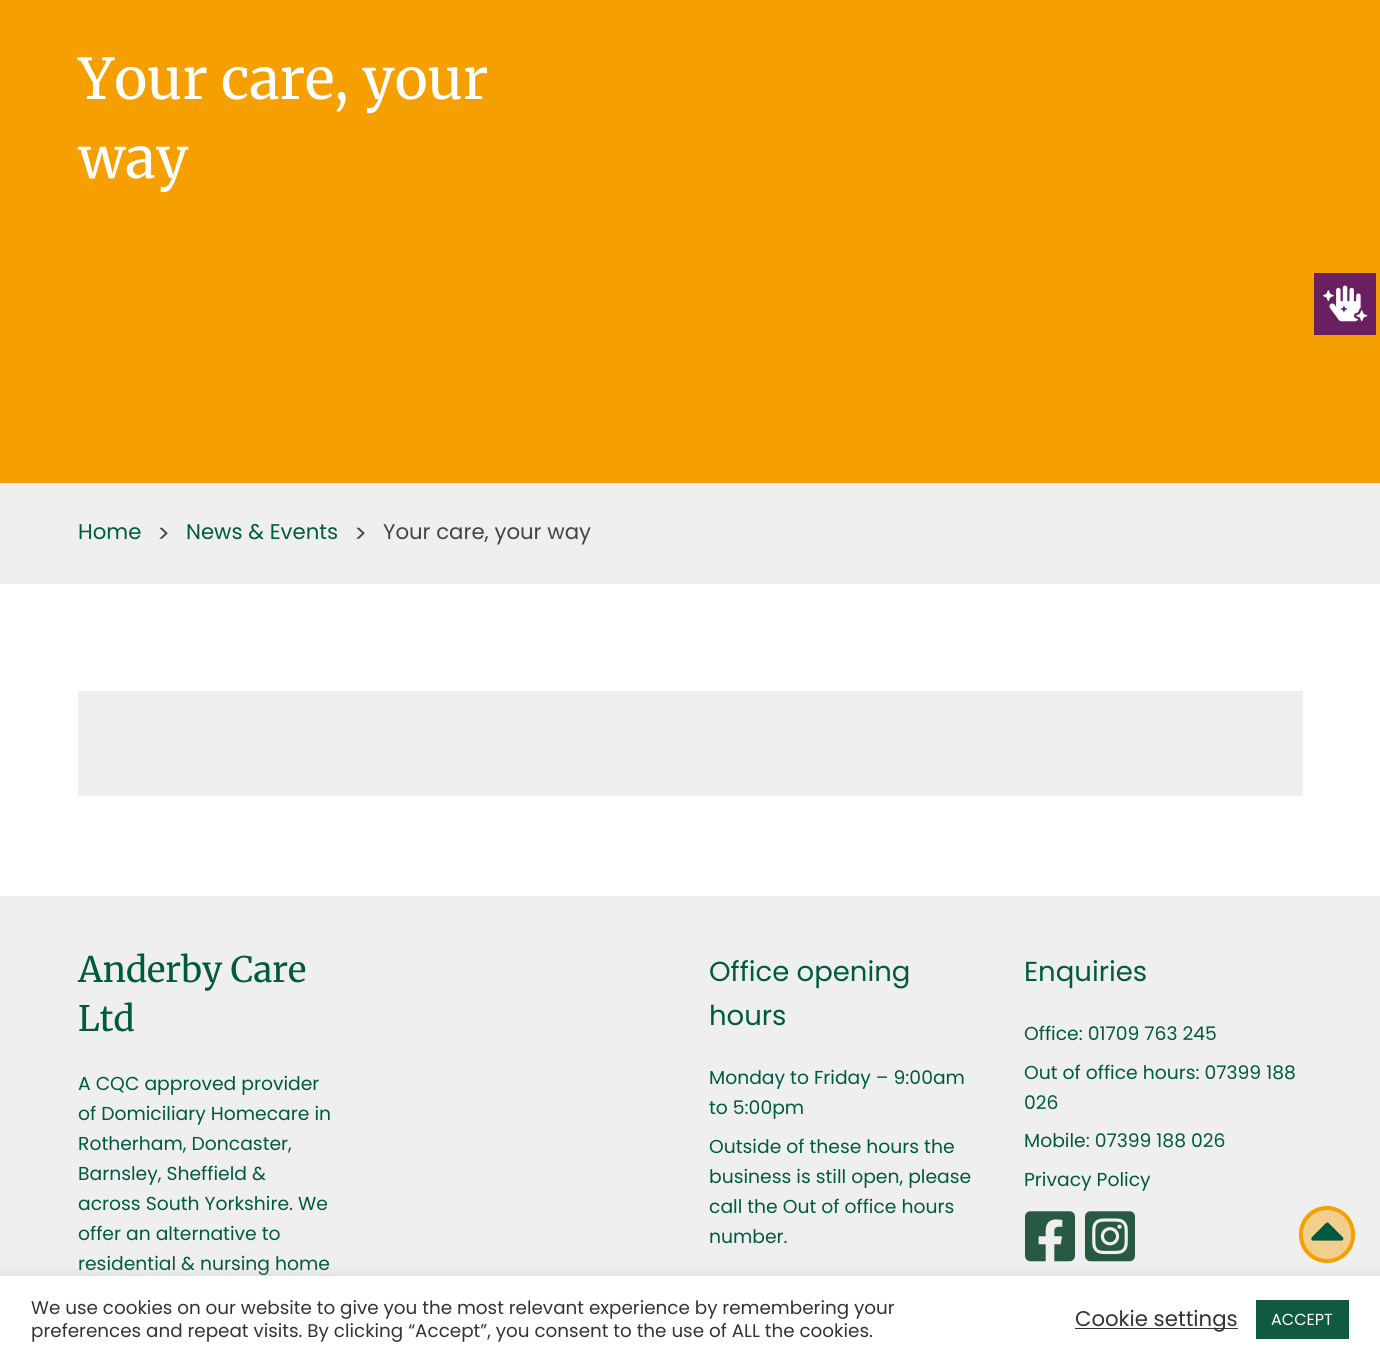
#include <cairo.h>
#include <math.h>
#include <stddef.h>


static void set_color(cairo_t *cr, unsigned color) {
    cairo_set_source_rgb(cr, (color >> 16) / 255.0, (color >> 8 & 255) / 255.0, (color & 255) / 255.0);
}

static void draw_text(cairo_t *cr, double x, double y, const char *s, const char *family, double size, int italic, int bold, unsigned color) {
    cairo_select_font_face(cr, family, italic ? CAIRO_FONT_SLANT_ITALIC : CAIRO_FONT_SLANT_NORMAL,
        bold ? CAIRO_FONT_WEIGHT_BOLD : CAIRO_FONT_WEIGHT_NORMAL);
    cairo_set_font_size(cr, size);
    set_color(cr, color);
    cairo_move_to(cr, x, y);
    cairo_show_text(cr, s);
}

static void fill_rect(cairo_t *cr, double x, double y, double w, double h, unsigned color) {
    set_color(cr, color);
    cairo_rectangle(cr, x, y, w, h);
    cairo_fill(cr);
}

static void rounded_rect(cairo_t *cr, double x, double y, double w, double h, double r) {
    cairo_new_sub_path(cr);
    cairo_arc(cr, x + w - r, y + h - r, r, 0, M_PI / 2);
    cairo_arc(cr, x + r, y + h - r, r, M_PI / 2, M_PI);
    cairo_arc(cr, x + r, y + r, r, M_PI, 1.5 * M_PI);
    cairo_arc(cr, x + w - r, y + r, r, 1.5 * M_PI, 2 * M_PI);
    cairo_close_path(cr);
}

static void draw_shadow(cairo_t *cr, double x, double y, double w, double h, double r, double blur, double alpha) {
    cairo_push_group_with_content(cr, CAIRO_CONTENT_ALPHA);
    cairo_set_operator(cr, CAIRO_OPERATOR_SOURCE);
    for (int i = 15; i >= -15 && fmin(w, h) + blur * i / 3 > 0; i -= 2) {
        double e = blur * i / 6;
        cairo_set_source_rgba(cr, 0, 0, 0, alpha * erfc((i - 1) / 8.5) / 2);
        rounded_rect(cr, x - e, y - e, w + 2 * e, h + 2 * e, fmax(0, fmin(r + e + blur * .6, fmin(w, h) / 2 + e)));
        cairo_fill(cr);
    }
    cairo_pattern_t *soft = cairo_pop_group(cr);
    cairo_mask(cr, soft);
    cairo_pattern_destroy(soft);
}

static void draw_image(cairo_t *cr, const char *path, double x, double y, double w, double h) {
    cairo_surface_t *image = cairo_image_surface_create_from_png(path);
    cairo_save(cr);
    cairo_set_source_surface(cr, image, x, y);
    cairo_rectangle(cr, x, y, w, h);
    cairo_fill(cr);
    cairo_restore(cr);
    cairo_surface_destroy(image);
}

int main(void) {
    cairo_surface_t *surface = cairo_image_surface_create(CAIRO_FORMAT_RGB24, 1380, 1362);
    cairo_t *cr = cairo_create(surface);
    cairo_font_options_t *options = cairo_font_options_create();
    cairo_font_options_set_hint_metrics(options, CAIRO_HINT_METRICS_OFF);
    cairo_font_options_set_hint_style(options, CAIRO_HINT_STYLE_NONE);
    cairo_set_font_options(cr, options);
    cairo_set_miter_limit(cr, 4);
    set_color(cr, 0xFFFFFF);
    cairo_paint(cr);
    fill_rect(cr, 0, 0, 1380, 483, 0xF69F00);
    draw_text(cr, 78, 99, "Your care, your", "Merriweather Light", 56.25, 0, 0, 0xFFFFFF);
    draw_text(cr, 78, 178, "way", "Merriweather Light", 56.25, 0, 0, 0xFFFFFF);
    fill_rect(cr, 1314, 273, 62, 62, 0x6A205F);
    draw_image(cr, "assets/img1.png", 1323, 285, 45, 37);
    fill_rect(cr, 0, 483, 1380, 101, 0xEFEFEF);
    draw_text(cr, 78, 539, "Home", "Poppins", 21.25, 0, 0, 0x005A40);
    draw_text(cr, 157, 542, ">", "Poppins", 24, 0, 0, 0x444444);
    draw_text(cr, 186, 539, "News & Events", "Poppins", 21.25, 0, 0, 0x005A40);
    draw_text(cr, 354, 542, ">", "Poppins", 24, 0, 0, 0x444444);
    draw_text(cr, 383, 539, "Your care, your way", "Poppins", 21.25, 0, 0, 0x444444);
    fill_rect(cr, 78, 691, 1225, 105, 0xEFEFEF);
    fill_rect(cr, 0, 896, 1380, 380, 0xEFEFEF);
    draw_text(cr, 78, 982, "Anderby Care", "Merriweather Light", 35, 0, 0, 0x005A40);
    draw_text(cr, 78, 1031, "Ltd", "Merriweather Light", 35, 0, 0, 0x005A40);
    draw_text(cr, 78, 1090, "A CQC approved provider", "Poppins", 18.75, 0, 0, 0x005A40);
    draw_text(cr, 78, 1120, "of Domiciliary Homecare in", "Poppins", 18.75, 0, 0, 0x005A40);
    draw_text(cr, 78, 1150, "Rotherham, Doncaster,", "Poppins", 18.75, 0, 0, 0x005A40);
    draw_text(cr, 78, 1180, "Barnsley, Sheffield &", "Poppins", 18.75, 0, 0, 0x005A40);
    draw_text(cr, 78, 1210, "across South Yorkshire. We", "Poppins", 18.75, 0, 0, 0x005A40);
    draw_text(cr, 78, 1240, "offer an alternative to", "Poppins", 18.75, 0, 0, 0x005A40);
    draw_text(cr, 78, 1270, "residential & nursing home", "Poppins", 18.75, 0, 0, 0x005A40);
    draw_text(cr, 709, 981, "Office opening", "Poppins", 27.5, 0, 0, 0x005A40);
    draw_text(cr, 709, 1025, "hours", "Poppins", 27.5, 0, 0, 0x005A40);
    draw_text(cr, 709, 1084, "Monday to Friday – 9:00am", "Poppins", 18.75, 0, 0, 0x005A40);
    draw_text(cr, 709, 1114, "to 5:00pm", "Poppins", 18.75, 0, 0, 0x005A40);
    draw_text(cr, 709, 1153, "Outside of these hours the", "Poppins", 18.75, 0, 0, 0x005A40);
    draw_text(cr, 709, 1183, "business is still open, please", "Poppins", 18.75, 0, 0, 0x005A40);
    draw_text(cr, 709, 1213, "call the Out of office hours", "Poppins", 18.75, 0, 0, 0x005A40);
    draw_text(cr, 709, 1243, "number.", "Poppins", 18.75, 0, 0, 0x005A40);
    draw_text(cr, 1024, 981, "Enquiries", "Poppins", 27.5, 0, 0, 0x005A40);
    draw_text(cr, 1024, 1040, "Office: 01709 763 245", "Poppins", 18.75, 0, 0, 0x005A40);
    draw_text(cr, 1024, 1079, "Out of office hours: 07399 188", "Poppins", 18.75, 0, 0, 0x005A40);
    draw_text(cr, 1024, 1109, "026", "Poppins", 18.75, 0, 0, 0x005A40);
    draw_text(cr, 1024, 1147, "Mobile: 07399 188 026", "Poppins", 18.75, 0, 0, 0x005A40);
    draw_text(cr, 1024, 1186, "Privacy Policy", "Poppins", 18.75, 0, 0, 0x005A40);
    draw_image(cr, "assets/img2.png", 1025, 1211, 50, 51);
    draw_image(cr, "assets/img3.png", 1085, 1211, 50, 51);
    set_color(cr, 0xF2CF8F);
    rounded_rect(cr, 1301, 1208, 52, 53, 26);
    cairo_fill_preserve(cr);
    set_color(cr, 0xF69F00);
    cairo_set_line_width(cr, 4);
    cairo_stroke(cr);
    draw_image(cr, "assets/img4.png", 1311, 1222, 33, 19);
    set_color(cr, 0xACABAB);
    draw_shadow(cr, 0, 1275, 1380, 86, 0, 6, 0.3);
    fill_rect(cr, 0, 1276, 1380, 86, 0xFFFFFF);
    draw_text(cr, 31, 1314, "We use cookies on our website to give you the most relevant experience by remembering your", "Poppins", 18.35, 0, 0, 0x333333);
    draw_text(cr, 31, 1337, "preferences and repeat visits. By clicking “Accept”, you consent to the use of ALL the cookies.", "Poppins", 18.35, 0, 0, 0x333333);
    fill_rect(cr, 1075, 1328, 163, 1, 0x333333);
    draw_text(cr, 1075, 1326, "Cookie settings", "Poppins", 21.25, 0, 0, 0x333333);
    fill_rect(cr, 1256, 1300, 93, 39, 0x105A40);
    draw_text(cr, 1271, 1325, "ACCEPT", "Poppins", 16, 0, 0, 0xFFFFFF);
    cairo_surface_write_to_png(surface, "output.png");
    cairo_font_options_destroy(options);
    cairo_destroy(cr);
    cairo_surface_destroy(surface);
    return 0;
}
